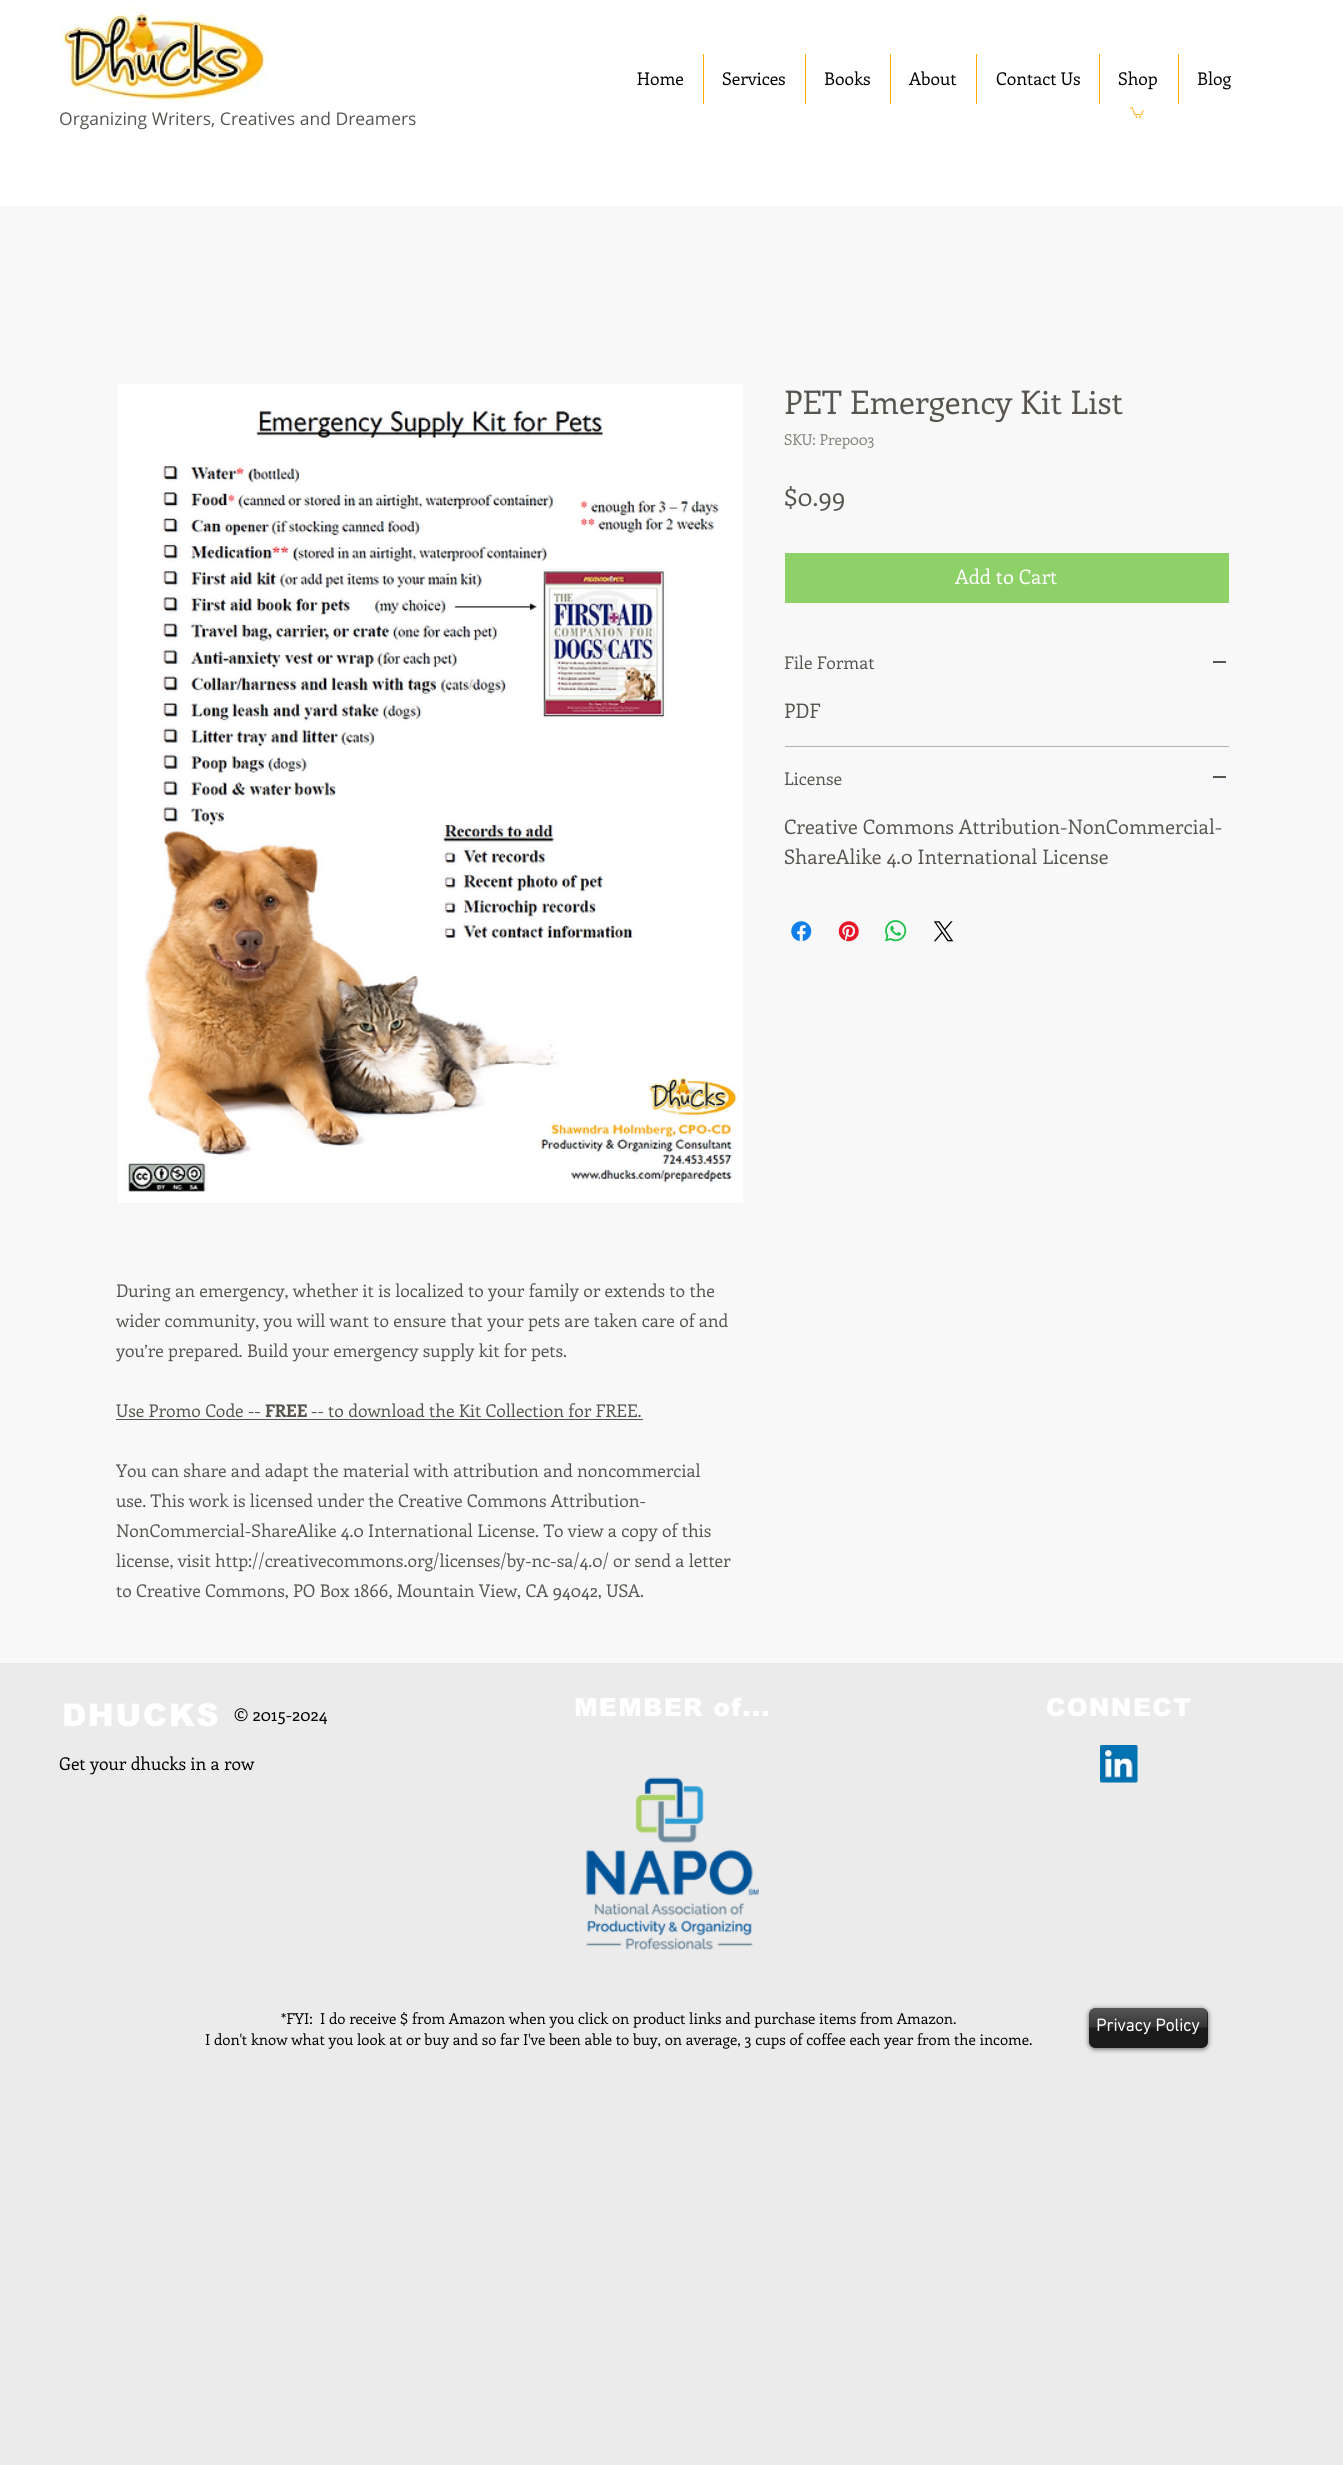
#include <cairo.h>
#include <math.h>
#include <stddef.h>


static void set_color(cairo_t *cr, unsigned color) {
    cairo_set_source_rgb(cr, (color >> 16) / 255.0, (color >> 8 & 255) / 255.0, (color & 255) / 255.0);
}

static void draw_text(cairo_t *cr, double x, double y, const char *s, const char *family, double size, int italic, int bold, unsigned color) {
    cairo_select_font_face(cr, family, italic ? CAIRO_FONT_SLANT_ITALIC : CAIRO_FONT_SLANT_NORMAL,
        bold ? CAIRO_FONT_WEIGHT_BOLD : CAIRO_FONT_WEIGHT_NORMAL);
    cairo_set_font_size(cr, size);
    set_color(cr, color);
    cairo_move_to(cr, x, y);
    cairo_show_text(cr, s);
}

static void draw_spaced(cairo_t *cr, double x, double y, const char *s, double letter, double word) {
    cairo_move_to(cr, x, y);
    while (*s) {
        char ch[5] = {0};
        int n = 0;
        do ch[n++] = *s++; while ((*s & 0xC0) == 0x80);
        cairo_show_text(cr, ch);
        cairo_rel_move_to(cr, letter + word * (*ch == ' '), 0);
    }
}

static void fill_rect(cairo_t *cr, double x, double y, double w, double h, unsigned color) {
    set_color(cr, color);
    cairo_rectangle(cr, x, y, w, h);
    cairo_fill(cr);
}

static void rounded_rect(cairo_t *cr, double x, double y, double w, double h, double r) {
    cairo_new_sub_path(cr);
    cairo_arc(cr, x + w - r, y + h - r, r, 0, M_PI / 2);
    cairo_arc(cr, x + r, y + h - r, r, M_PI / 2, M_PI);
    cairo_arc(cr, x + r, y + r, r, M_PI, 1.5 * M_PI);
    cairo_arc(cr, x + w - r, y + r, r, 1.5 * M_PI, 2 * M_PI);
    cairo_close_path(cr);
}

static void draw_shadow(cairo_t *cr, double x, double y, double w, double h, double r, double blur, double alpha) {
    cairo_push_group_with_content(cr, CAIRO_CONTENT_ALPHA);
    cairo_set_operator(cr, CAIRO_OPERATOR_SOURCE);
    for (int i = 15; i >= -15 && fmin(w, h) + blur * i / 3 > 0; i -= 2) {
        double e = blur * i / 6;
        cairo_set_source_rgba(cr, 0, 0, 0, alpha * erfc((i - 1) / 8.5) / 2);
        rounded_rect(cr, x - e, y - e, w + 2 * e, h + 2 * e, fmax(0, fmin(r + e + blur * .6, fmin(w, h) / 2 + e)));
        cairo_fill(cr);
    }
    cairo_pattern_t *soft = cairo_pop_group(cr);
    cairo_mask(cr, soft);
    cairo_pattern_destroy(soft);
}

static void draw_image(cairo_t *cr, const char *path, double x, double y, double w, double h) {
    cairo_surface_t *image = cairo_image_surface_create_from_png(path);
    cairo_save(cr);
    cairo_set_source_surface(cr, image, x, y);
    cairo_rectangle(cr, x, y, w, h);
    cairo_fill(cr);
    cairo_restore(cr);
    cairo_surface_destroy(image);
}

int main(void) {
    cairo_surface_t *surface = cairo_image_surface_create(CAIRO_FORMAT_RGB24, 1343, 2465);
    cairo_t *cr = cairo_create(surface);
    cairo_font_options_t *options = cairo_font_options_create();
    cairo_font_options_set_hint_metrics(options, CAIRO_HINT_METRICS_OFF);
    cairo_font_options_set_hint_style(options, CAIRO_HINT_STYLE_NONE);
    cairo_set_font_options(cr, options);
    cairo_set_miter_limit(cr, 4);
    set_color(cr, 0xF8F8F8);
    cairo_paint(cr);
    fill_rect(cr, 0, 0, 1343, 206, 0xFFFFFF);
    draw_image(cr, "assets/img1.png", 60, 6, 209, 100);
    draw_text(cr, 637, 85, "Home", "Enriqueta", 17.5, 0, 0, 0x000000);
    fill_rect(cr, 703, 54, 1, 50, 0xFFAB03);
    draw_text(cr, 722, 85, "Services", "Enriqueta", 17.5, 0, 0, 0x000000);
    fill_rect(cr, 805, 54, 1, 50, 0xFFAB03);
    draw_text(cr, 824, 85, "Books", "Enriqueta", 17.5, 0, 0, 0x000000);
    fill_rect(cr, 890, 54, 1, 50, 0xFFAB03);
    draw_text(cr, 909, 85, "About", "Enriqueta", 17.5, 0, 0, 0x000000);
    fill_rect(cr, 976, 54, 1, 50, 0xFFAB03);
    draw_text(cr, 996, 85, "Contact Us", "Enriqueta", 17.5, 0, 0, 0x000000);
    fill_rect(cr, 1099, 54, 1, 50, 0xFFAB03);
    draw_text(cr, 1118, 85, "Shop", "Enriqueta", 17.5, 0, 0, 0x000000);
    fill_rect(cr, 1178, 54, 1, 50, 0xFFAB03);
    draw_text(cr, 1197, 85, "Blog", "Enriqueta", 17.5, 0, 0, 0x000000);
    draw_text(cr, 59, 125, "Organizing Writers, Creatives and Dreamers", "Open Sans", 17.5, 0, 0, 0x585551);
    draw_image(cr, "assets/img2.png", 1130, 107, 14, 11);
    draw_text(cr, 784, 414, "PET Emergency Kit List", "Enriqueta", 32.5, 0, 0, 0x585551);
    draw_text(cr, 784, 445, "SKU: Prep003", "Enriqueta", 15, 0, 0, 0x848079);
    draw_text(cr, 784, 506, "$0.99", "Enriqueta", 25, 0, 0, 0x585551);
    fill_rect(cr, 785, 553, 444, 50, 0x8FD169);
    draw_text(cr, 955, 584, "Add to Cart", "Enriqueta", 20, 0, 0, 0xFFFFFF);
    fill_rect(cr, 785, 746, 444, 1, 0xB5B1A9);
    draw_text(cr, 784, 669, "File Format", "Enriqueta", 17.5, 0, 0, 0x585551);
    fill_rect(cr, 1213, 661, 13, 2, 0x585551);
    draw_text(cr, 784, 718, "PDF", "Enriqueta", 20, 0, 0, 0x585551);
    draw_text(cr, 784, 785, "License", "Enriqueta", 17.5, 0, 0, 0x585551);
    fill_rect(cr, 1213, 776, 13, 2, 0x585551);
    draw_text(cr, 784, 834, "Creative Commons Attribution-NonCommercial-", "Enriqueta", 20, 0, 0, 0x585551);
    draw_text(cr, 784, 864, "ShareAlike 4.0 International License", "Enriqueta", 20, 0, 0, 0x585551);
    draw_image(cr, "assets/img3.png", 791, 921, 21, 21);
    draw_image(cr, "assets/img4.png", 838, 921, 21, 21);
    draw_image(cr, "assets/img5.png", 885, 920, 22, 22);
    draw_image(cr, "assets/img6.png", 933, 921, 21, 21);
    draw_image(cr, "assets/img7.png", 118, 384, 625, 819);
    draw_text(cr, 116, 1297, "During an emergency, whether it is localized to your family or extends to the", "Enriqueta", 17.5, 0, 0, 0x585551);
    draw_text(cr, 116, 1327, "wider community, you will want to ensure that your pets are taken care of and", "Enriqueta", 17.5, 0, 0, 0x585551);
    cairo_save(cr);
    cairo_rectangle(cr, 116, 1276, 625, 330);
    cairo_clip(cr);
    draw_text(cr, 116, 1357, "you", "Enriqueta", 17.5, 0, 0, 0x585551);
    cairo_restore(cr);
    draw_text(cr, 144, 1357, "’re prepared. Build your emergency supply kit for pets.", "Enriqueta", 17.5, 0, 0, 0x585551);
    draw_text(cr, 116, 1417, "Use Promo Code --", "Enriqueta", 17.5, 0, 0, 0x585551);
    draw_text(cr, 265, 1417, "FREE", "Enriqueta", 17.5, 0, 1, 0x585551);
    fill_rect(cr, 116, 1419, 527, 1, 0x585551);
    draw_text(cr, 311, 1417, "-- to download the Kit Collection for FREE.", "Enriqueta", 17.5, 0, 0, 0x585551);
    draw_text(cr, 116, 1477, "You can share and adapt the material with attribution and noncommercial", "Enriqueta", 17.5, 0, 0, 0x585551);
    draw_text(cr, 116, 1507, "use. This work is licensed under the Creative Commons Attribution-", "Enriqueta", 17.5, 0, 0, 0x585551);
    draw_text(cr, 116, 1537, "NonCommercial-ShareAlike 4.0 International License. To view a copy of this", "Enriqueta", 17.5, 0, 0, 0x585551);
    draw_text(cr, 116, 1567, "license, visit http://creativecommons.org/licenses/by-nc-sa/4.0/ or send a letter", "Enriqueta", 17.5, 0, 0, 0x585551);
    draw_text(cr, 116, 1597, "to Creative Commons, PO Box 1866, Mountain View, CA 94042, USA.", "Enriqueta", 17.5, 0, 0, 0x585551);
    fill_rect(cr, 0, 1663, 1343, 802, 0xECEBEB);
    cairo_select_font_face(cr, "arial Black", CAIRO_FONT_SLANT_NORMAL, CAIRO_FONT_WEIGHT_NORMAL);
    cairo_set_font_size(cr, 31.25);
    set_color(cr, 0xFFFFFF);
    draw_spaced(cr, 62, 1726, "DHUCKS", 1.5, 0);
    draw_text(cr, 234, 1721, "© 2015-2024", "Enriqueta", 17.5, 0, 0, 0x000000);
    cairo_select_font_face(cr, "arial Black", CAIRO_FONT_SLANT_NORMAL, CAIRO_FONT_WEIGHT_NORMAL);
    cairo_set_font_size(cr, 25);
    set_color(cr, 0xFFFFFF);
    draw_spaced(cr, 574, 1716, "MEMBER of...", 1.25, 0);
    draw_spaced(cr, 1046, 1716, "CONNECT", 1.25, 0);
    draw_text(cr, 59, 1770, "Get your dhucks in a row", "Enriqueta", 17.5, 0, 0, 0x000000);
    draw_image(cr, "assets/img8.png", 1100, 1745, 38, 38);
    draw_image(cr, "assets/img9.png", 586, 1777, 173, 174);
    draw_text(cr, 281, 2024, "*FYI:", "Enriqueta", 15, 0, 0, 0x000000);
    draw_text(cr, 320, 2024, "I do receive $ from Amazon when you click on product links and purchase items from Amazon.", "Enriqueta", 15, 0, 0, 0x000000);
    draw_text(cr, 205, 2045, "I don't know what you look at or buy and so far I've been able to buy, on average, 3 cups of coffee each year from the income.", "Enriqueta", 15, 0, 0, 0x000000);
    cairo_save(cr);
    cairo_set_fill_rule(cr, CAIRO_FILL_RULE_EVEN_ODD);
    cairo_new_path(cr);
    cairo_move_to(cr, 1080, 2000);
    cairo_line_to(cr, 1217, 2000);
    cairo_line_to(cr, 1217, 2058);
    cairo_line_to(cr, 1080, 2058);
    cairo_close_path(cr);
    cairo_move_to(cr, 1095, 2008);
    cairo_line_to(cr, 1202, 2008);
    cairo_curve_to(cr, 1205.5, 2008, 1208, 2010.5, 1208, 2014);
    cairo_line_to(cr, 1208, 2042);
    cairo_curve_to(cr, 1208, 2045.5, 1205.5, 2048, 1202, 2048);
    cairo_line_to(cr, 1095, 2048);
    cairo_curve_to(cr, 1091.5, 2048, 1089, 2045.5, 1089, 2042);
    cairo_line_to(cr, 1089, 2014);
    cairo_curve_to(cr, 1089, 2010.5, 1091.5, 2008, 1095, 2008);
    cairo_close_path(cr);
    cairo_clip(cr);
    set_color(cr, 0x000000);
    draw_shadow(cr, 1089, 2009, 119, 40, 6, 2.5, 0.6);
    cairo_restore(cr);
    cairo_set_source_rgba(cr, 0, 0, 0, 0.89);
    rounded_rect(cr, 1089, 2008, 119, 40, 6);
    cairo_fill(cr);
    draw_image(cr, "assets/img10.png", 1089, 2008, 119, 20);
    draw_text(cr, 1096, 2031, "Privacy Policy", "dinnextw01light", 17.5, 0, 1, 0xFFFFFF);
    cairo_surface_write_to_png(surface, "output.png");
    cairo_font_options_destroy(options);
    cairo_destroy(cr);
    cairo_surface_destroy(surface);
    return 0;
}
